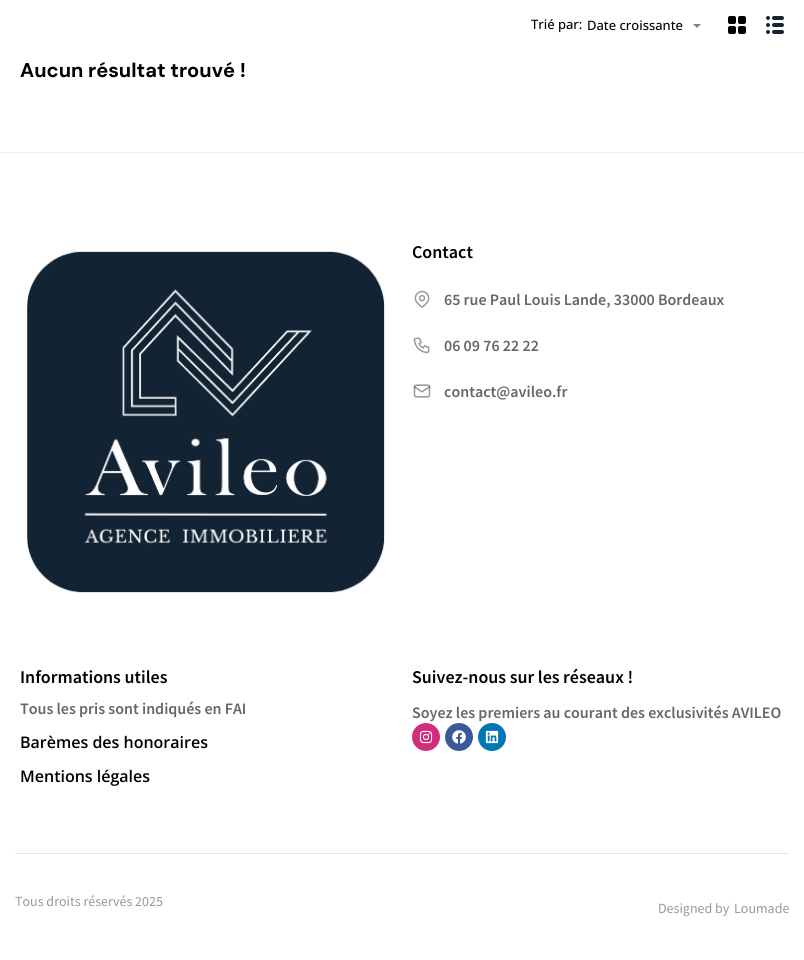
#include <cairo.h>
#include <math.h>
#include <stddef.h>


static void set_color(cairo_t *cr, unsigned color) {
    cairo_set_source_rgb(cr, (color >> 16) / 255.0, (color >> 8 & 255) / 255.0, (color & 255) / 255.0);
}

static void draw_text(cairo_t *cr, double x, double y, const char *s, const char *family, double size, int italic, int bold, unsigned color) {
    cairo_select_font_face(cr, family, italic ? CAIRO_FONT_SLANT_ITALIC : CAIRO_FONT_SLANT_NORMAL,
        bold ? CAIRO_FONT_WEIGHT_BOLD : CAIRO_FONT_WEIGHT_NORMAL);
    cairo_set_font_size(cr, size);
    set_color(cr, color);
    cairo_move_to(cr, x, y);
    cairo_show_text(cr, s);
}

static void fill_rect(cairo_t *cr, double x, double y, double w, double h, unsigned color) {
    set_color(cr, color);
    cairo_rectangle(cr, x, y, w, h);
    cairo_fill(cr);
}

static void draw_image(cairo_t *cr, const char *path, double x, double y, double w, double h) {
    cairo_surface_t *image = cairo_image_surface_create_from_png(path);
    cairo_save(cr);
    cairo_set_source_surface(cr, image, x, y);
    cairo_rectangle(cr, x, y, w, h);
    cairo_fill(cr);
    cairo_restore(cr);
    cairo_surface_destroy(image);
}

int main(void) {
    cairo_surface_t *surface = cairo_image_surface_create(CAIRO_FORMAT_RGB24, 804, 960);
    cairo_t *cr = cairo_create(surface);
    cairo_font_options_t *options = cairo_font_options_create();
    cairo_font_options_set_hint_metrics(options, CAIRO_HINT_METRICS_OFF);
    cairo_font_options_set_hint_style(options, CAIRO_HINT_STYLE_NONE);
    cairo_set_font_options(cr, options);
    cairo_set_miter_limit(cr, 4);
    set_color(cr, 0xFFFFFF);
    cairo_paint(cr);
    draw_text(cr, 531, 29, "Trié par:", "Open Sans Medium", 13, 0, 0, 0x000000);
    draw_text(cr, 587, 30, "Date croissante", "Open Sans Medium", 13, 0, 0, 0x000000);
    set_color(cr, 0x808080);
    cairo_new_path(cr);
    cairo_move_to(cr, 693, 24);
    cairo_line_to(cr, 701, 24);
    cairo_line_to(cr, 697, 28);
    cairo_close_path(cr);
    cairo_fill(cr);
    draw_image(cr, "assets/img1.png", 728, 16, 18, 18);
    draw_image(cr, "assets/img2.png", 766, 16, 18, 18);
    draw_text(cr, 20, 77, "Aucun résultat trouvé !", "DM Sans", 20, 0, 1, 0x000000);
    fill_rect(cr, 0, 152, 804, 1, 0xEDEEF2);
    draw_image(cr, "assets/img3.png", 27, 251, 358, 342);
    draw_text(cr, 412, 258, "Contact", "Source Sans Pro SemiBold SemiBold", 18, 0, 0, 0x000000);
    draw_image(cr, "assets/img4.png", 414, 290, 16, 18);
    draw_text(cr, 444, 305, "65 rue Paul Louis Lande, 33000 Bordeaux", "Source Sans Pro SemiBold SemiBold", 16, 0, 0, 0x666666);
    draw_image(cr, "assets/img5.png", 413, 337, 17, 17);
    draw_text(cr, 444, 351, "06 09 76 22 22", "Source Sans Pro SemiBold SemiBold", 16, 0, 0, 0x666666);
    draw_image(cr, "assets/img6.png", 413, 384, 18, 14);
    draw_text(cr, 444, 397, "contact@avileo.fr", "Source Sans Pro SemiBold SemiBold", 16, 0, 0, 0x666666);
    draw_text(cr, 20, 683, "Informations utiles", "Source Sans Pro SemiBold SemiBold", 18, 0, 0, 0x000000);
    draw_text(cr, 20, 714, "Tous les pris sont indiqués en FAI", "Source Sans Pro SemiBold SemiBold", 16, 0, 0, 0x666666);
    draw_text(cr, 20, 748, "Barèmes des honoraires", "Open Sans SemiBold", 16, 0, 0, 0x000000);
    draw_text(cr, 20, 782, "Mentions légales", "Open Sans SemiBold", 16, 0, 0, 0x000000);
    draw_text(cr, 412, 683, "Suivez-nous sur les réseaux !", "Source Sans Pro SemiBold SemiBold", 18, 0, 0, 0x000000);
    draw_text(cr, 412, 718, "Soyez les premiers au courant des exclusivités AVILEO", "Source Sans Pro SemiBold SemiBold", 16, 0, 0, 0x666666);
    set_color(cr, 0xD22D7D);
    cairo_new_path(cr);
    cairo_arc(cr, 426, 737, 14, 0, 2 * M_PI);
    cairo_fill(cr);
    draw_image(cr, "assets/img7.png", 419, 730, 14, 14);
    set_color(cr, 0x3B5998);
    cairo_arc(cr, 459, 737, 14, 0, 2 * M_PI);
    cairo_fill(cr);
    draw_image(cr, "assets/img8.png", 452, 730, 14, 14);
    set_color(cr, 0x0077B5);
    cairo_arc(cr, 492, 737, 14, 0, 2 * M_PI);
    cairo_fill(cr);
    draw_image(cr, "assets/img9.png", 485, 730, 14, 14);
    fill_rect(cr, 15, 853, 774, 1, 0xE6E6E6);
    draw_text(cr, 15, 906, "Tous droits réservés 2025", "Source Sans Pro", 14, 0, 0, 0x999999);
    draw_text(cr, 658, 913, "Designed by", "Source Sans Pro", 14, 0, 0, 0x999999);
    draw_text(cr, 734, 913, "Loumade", "Source Sans Pro", 14, 0, 0, 0x999999);
    cairo_surface_write_to_png(surface, "output.png");
    cairo_font_options_destroy(options);
    cairo_destroy(cr);
    cairo_surface_destroy(surface);
    return 0;
}
